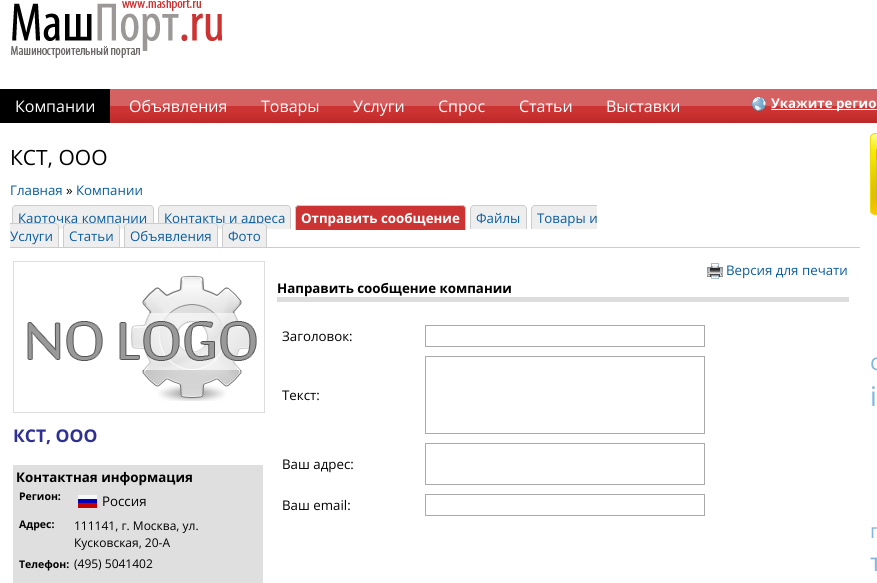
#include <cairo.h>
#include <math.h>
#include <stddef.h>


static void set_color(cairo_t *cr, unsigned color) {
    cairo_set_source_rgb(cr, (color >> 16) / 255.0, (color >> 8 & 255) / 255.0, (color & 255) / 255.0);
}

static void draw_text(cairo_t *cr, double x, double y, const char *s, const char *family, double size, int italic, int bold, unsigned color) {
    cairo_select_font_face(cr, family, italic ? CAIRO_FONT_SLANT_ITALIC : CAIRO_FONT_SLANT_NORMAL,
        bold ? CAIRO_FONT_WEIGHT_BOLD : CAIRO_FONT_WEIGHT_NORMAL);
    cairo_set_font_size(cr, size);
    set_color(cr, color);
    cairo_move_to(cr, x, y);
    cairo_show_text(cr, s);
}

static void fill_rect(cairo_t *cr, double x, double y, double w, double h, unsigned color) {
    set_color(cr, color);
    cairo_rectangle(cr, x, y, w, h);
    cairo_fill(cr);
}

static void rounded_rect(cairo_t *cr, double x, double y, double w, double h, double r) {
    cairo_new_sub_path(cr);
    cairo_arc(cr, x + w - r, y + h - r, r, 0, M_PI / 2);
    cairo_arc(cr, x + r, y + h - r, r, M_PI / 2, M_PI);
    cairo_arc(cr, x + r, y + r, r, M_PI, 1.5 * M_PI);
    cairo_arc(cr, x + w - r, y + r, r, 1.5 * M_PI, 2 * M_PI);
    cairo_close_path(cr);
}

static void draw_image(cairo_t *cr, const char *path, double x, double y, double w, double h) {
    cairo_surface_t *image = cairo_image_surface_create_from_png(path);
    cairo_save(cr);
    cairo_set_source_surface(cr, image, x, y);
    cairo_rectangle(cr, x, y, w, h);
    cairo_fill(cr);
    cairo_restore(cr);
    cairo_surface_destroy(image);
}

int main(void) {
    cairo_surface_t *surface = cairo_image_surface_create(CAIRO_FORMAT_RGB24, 877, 583);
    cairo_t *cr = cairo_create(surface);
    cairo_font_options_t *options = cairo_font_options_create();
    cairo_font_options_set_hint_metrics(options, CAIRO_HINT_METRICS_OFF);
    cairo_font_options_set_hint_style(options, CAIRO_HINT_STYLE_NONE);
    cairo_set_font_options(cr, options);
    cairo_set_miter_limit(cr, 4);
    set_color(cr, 0xFFFFFF);
    cairo_paint(cr);
    draw_image(cr, "assets/img1.png", 11, 0, 211, 58);
    draw_image(cr, "assets/img2.png", 110, 89, 767, 34);
    fill_rect(cr, 0, 89, 110, 34, 0x000000);
    draw_text(cr, 15, 112, "Компании", "Open Sans", 16, 0, 0, 0xFFFFFF);
    draw_text(cr, 129, 112, "Объявления", "Open Sans", 16, 0, 0, 0xFFFFFF);
    draw_text(cr, 261, 112, "Товары", "Open Sans", 16, 0, 0, 0xFFFFFF);
    draw_text(cr, 353, 112, "Услуги", "Open Sans", 16, 0, 0, 0xFFFFFF);
    draw_text(cr, 438, 112, "Спрос", "Open Sans", 16, 0, 0, 0xFFFFFF);
    draw_text(cr, 519, 112, "Статьи", "Open Sans", 16, 0, 0, 0xFFFFFF);
    draw_text(cr, 606, 112, "Выставки", "Open Sans", 16, 0, 0, 0xFFFFFF);
    draw_image(cr, "assets/img3.png", 751, 96, 16, 16);
    fill_rect(cr, 771, 109, 106, 1, 0xFFFFFF);
    draw_text(cr, 771, 108, "Укажите регио", "Open Sans", 13.3, 0, 1, 0xFFFFFF);
    draw_text(cr, 10, 165, "КСТ, ООО", "Open Sans", 21, 0, 0, 0x000000);
    draw_text(cr, 10, 195, "Главная", "Open Sans", 13.3, 0, 0, 0x095C9F);
    draw_text(cr, 66, 195, "»", "Open Sans", 13.3, 0, 0, 0x000000);
    draw_text(cr, 76, 195, "Компании", "Open Sans", 13.3, 0, 0, 0x095C9F);
    fill_rect(cr, 10, 247, 850, 1, 0xCCCCCC);
    set_color(cr, 0xEEEEEE);
    cairo_new_path(cr);
    cairo_move_to(cr, 16, 205);
    cairo_line_to(cr, 150, 205);
    cairo_curve_to(cr, 152, 205, 154, 207, 154, 209);
    cairo_line_to(cr, 154, 229);
    cairo_line_to(cr, 12, 229);
    cairo_line_to(cr, 12, 209);
    cairo_curve_to(cr, 12, 207, 14, 205, 16, 205);
    cairo_close_path(cr);
    cairo_fill(cr);
    set_color(cr, 0xCCCCCC);
    cairo_set_fill_rule(cr, CAIRO_FILL_RULE_EVEN_ODD);
    cairo_new_path(cr);
    cairo_move_to(cr, 16, 205);
    cairo_line_to(cr, 150, 205);
    cairo_curve_to(cr, 152, 205, 154, 207, 154, 209);
    cairo_line_to(cr, 154, 229);
    cairo_line_to(cr, 12, 229);
    cairo_line_to(cr, 12, 209);
    cairo_curve_to(cr, 12, 207, 14, 205, 16, 205);
    cairo_close_path(cr);
    cairo_move_to(cr, 16, 206);
    cairo_line_to(cr, 150, 206);
    cairo_curve_to(cr, 152, 206, 153, 207, 153, 209);
    cairo_line_to(cr, 153, 229);
    cairo_line_to(cr, 13, 229);
    cairo_line_to(cr, 13, 209);
    cairo_curve_to(cr, 13, 207, 14, 206, 16, 206);
    cairo_close_path(cr);
    cairo_fill(cr);
    draw_text(cr, 18, 223, "Карточка компании", "Open Sans", 13.3, 0, 0, 0x095C9F);
    set_color(cr, 0xEEEEEE);
    cairo_new_path(cr);
    cairo_move_to(cr, 162, 205);
    cairo_line_to(cr, 287, 205);
    cairo_curve_to(cr, 289, 205, 291, 207, 291, 209);
    cairo_line_to(cr, 291, 229);
    cairo_line_to(cr, 158, 229);
    cairo_line_to(cr, 158, 209);
    cairo_curve_to(cr, 158, 207, 160, 205, 162, 205);
    cairo_close_path(cr);
    cairo_fill(cr);
    set_color(cr, 0xCCCCCC);
    cairo_new_path(cr);
    cairo_move_to(cr, 162, 205);
    cairo_line_to(cr, 287, 205);
    cairo_curve_to(cr, 289, 205, 291, 207, 291, 209);
    cairo_line_to(cr, 291, 229);
    cairo_line_to(cr, 158, 229);
    cairo_line_to(cr, 158, 209);
    cairo_curve_to(cr, 158, 207, 160, 205, 162, 205);
    cairo_close_path(cr);
    cairo_move_to(cr, 162, 206);
    cairo_line_to(cr, 287, 206);
    cairo_curve_to(cr, 289, 206, 290, 207, 290, 209);
    cairo_line_to(cr, 290, 229);
    cairo_line_to(cr, 159, 229);
    cairo_line_to(cr, 159, 209);
    cairo_curve_to(cr, 159, 207, 160, 206, 162, 206);
    cairo_close_path(cr);
    cairo_fill(cr);
    draw_text(cr, 164, 223, "Контакты и адреса", "Open Sans", 13.3, 0, 0, 0x095C9F);
    set_color(cr, 0xCC3333);
    cairo_new_path(cr);
    cairo_move_to(cr, 299, 205);
    cairo_line_to(cr, 462, 205);
    cairo_curve_to(cr, 464, 205, 466, 207, 466, 209);
    cairo_line_to(cr, 466, 230);
    cairo_line_to(cr, 295, 230);
    cairo_line_to(cr, 295, 209);
    cairo_curve_to(cr, 295, 207, 297, 205, 299, 205);
    cairo_close_path(cr);
    cairo_fill(cr);
    set_color(cr, 0xCCCCCC);
    cairo_new_path(cr);
    cairo_move_to(cr, 299, 205);
    cairo_line_to(cr, 462, 205);
    cairo_curve_to(cr, 464, 205, 466, 207, 466, 209);
    cairo_line_to(cr, 466, 230);
    cairo_line_to(cr, 295, 230);
    cairo_line_to(cr, 295, 209);
    cairo_curve_to(cr, 295, 207, 297, 205, 299, 205);
    cairo_close_path(cr);
    cairo_move_to(cr, 299, 206);
    cairo_line_to(cr, 462, 206);
    cairo_curve_to(cr, 464, 206, 465, 207, 465, 209);
    cairo_line_to(cr, 465, 230);
    cairo_line_to(cr, 296, 230);
    cairo_line_to(cr, 296, 209);
    cairo_curve_to(cr, 296, 207, 297, 206, 299, 206);
    cairo_close_path(cr);
    cairo_fill(cr);
    draw_text(cr, 301, 223, "Отправить сообщение", "Open Sans", 13.3, 0, 1, 0xFFFFFF);
    set_color(cr, 0xEEEEEE);
    cairo_new_path(cr);
    cairo_move_to(cr, 474, 205);
    cairo_line_to(cr, 523, 205);
    cairo_curve_to(cr, 525, 205, 527, 207, 527, 209);
    cairo_line_to(cr, 527, 229);
    cairo_line_to(cr, 470, 229);
    cairo_line_to(cr, 470, 209);
    cairo_curve_to(cr, 470, 207, 472, 205, 474, 205);
    cairo_close_path(cr);
    cairo_fill(cr);
    set_color(cr, 0xCCCCCC);
    cairo_new_path(cr);
    cairo_move_to(cr, 474, 205);
    cairo_line_to(cr, 523, 205);
    cairo_curve_to(cr, 525, 205, 527, 207, 527, 209);
    cairo_line_to(cr, 527, 229);
    cairo_line_to(cr, 470, 229);
    cairo_line_to(cr, 470, 209);
    cairo_curve_to(cr, 470, 207, 472, 205, 474, 205);
    cairo_close_path(cr);
    cairo_move_to(cr, 474, 206);
    cairo_line_to(cr, 523, 206);
    cairo_curve_to(cr, 525, 206, 526, 207, 526, 209);
    cairo_line_to(cr, 526, 229);
    cairo_line_to(cr, 471, 229);
    cairo_line_to(cr, 471, 209);
    cairo_curve_to(cr, 471, 207, 472, 206, 474, 206);
    cairo_close_path(cr);
    cairo_fill(cr);
    draw_text(cr, 476, 223, "Файлы", "Open Sans", 13.3, 0, 0, 0x095C9F);
    set_color(cr, 0xEEEEEE);
    cairo_new_path(cr);
    cairo_move_to(cr, 535, 205);
    cairo_line_to(cr, 597, 205);
    cairo_line_to(cr, 597, 229);
    cairo_line_to(cr, 531, 229);
    cairo_line_to(cr, 531, 209);
    cairo_curve_to(cr, 531, 207, 533, 205, 535, 205);
    cairo_close_path(cr);
    cairo_fill(cr);
    set_color(cr, 0xCCCCCC);
    cairo_new_path(cr);
    cairo_move_to(cr, 535, 205);
    cairo_line_to(cr, 597, 205);
    cairo_line_to(cr, 597, 229);
    cairo_line_to(cr, 531, 229);
    cairo_line_to(cr, 531, 209);
    cairo_curve_to(cr, 531, 207, 533, 205, 535, 205);
    cairo_close_path(cr);
    cairo_move_to(cr, 535, 206);
    cairo_line_to(cr, 597, 206);
    cairo_line_to(cr, 597, 229);
    cairo_line_to(cr, 532, 229);
    cairo_line_to(cr, 532, 209);
    cairo_curve_to(cr, 532, 207, 533, 206, 535, 206);
    cairo_close_path(cr);
    cairo_fill(cr);
    draw_text(cr, 537, 223, "Товары и", "Open Sans", 13.3, 0, 0, 0x095C9F);
    set_color(cr, 0xEEEEEE);
    cairo_new_path(cr);
    cairo_move_to(cr, 10, 223);
    cairo_line_to(cr, 55, 223);
    cairo_curve_to(cr, 57, 223, 59, 225, 59, 227);
    cairo_line_to(cr, 59, 247);
    cairo_line_to(cr, 10, 247);
    cairo_close_path(cr);
    cairo_fill(cr);
    set_color(cr, 0xCCCCCC);
    cairo_new_path(cr);
    cairo_move_to(cr, 10, 223);
    cairo_line_to(cr, 55, 223);
    cairo_curve_to(cr, 57, 223, 59, 225, 59, 227);
    cairo_line_to(cr, 59, 247);
    cairo_line_to(cr, 10, 247);
    cairo_close_path(cr);
    cairo_move_to(cr, 10, 224);
    cairo_line_to(cr, 55, 224);
    cairo_curve_to(cr, 57, 224, 58, 225, 58, 227);
    cairo_line_to(cr, 58, 247);
    cairo_line_to(cr, 10, 247);
    cairo_close_path(cr);
    cairo_fill(cr);
    draw_text(cr, 10, 241, "Услуги", "Open Sans", 13.3, 0, 0, 0x095C9F);
    set_color(cr, 0xEEEEEE);
    cairo_new_path(cr);
    cairo_move_to(cr, 67, 223);
    cairo_line_to(cr, 116, 223);
    cairo_curve_to(cr, 118, 223, 120, 225, 120, 227);
    cairo_line_to(cr, 120, 247);
    cairo_line_to(cr, 63, 247);
    cairo_line_to(cr, 63, 227);
    cairo_curve_to(cr, 63, 225, 65, 223, 67, 223);
    cairo_close_path(cr);
    cairo_fill(cr);
    set_color(cr, 0xCCCCCC);
    cairo_new_path(cr);
    cairo_move_to(cr, 67, 223);
    cairo_line_to(cr, 116, 223);
    cairo_curve_to(cr, 118, 223, 120, 225, 120, 227);
    cairo_line_to(cr, 120, 247);
    cairo_line_to(cr, 63, 247);
    cairo_line_to(cr, 63, 227);
    cairo_curve_to(cr, 63, 225, 65, 223, 67, 223);
    cairo_close_path(cr);
    cairo_move_to(cr, 67, 224);
    cairo_line_to(cr, 116, 224);
    cairo_curve_to(cr, 118, 224, 119, 225, 119, 227);
    cairo_line_to(cr, 119, 247);
    cairo_line_to(cr, 64, 247);
    cairo_line_to(cr, 64, 227);
    cairo_curve_to(cr, 64, 225, 65, 224, 67, 224);
    cairo_close_path(cr);
    cairo_fill(cr);
    draw_text(cr, 69, 241, "Статьи", "Open Sans", 13.3, 0, 0, 0x095C9F);
    set_color(cr, 0xEEEEEE);
    cairo_new_path(cr);
    cairo_move_to(cr, 128, 223);
    cairo_line_to(cr, 214, 223);
    cairo_curve_to(cr, 216, 223, 218, 225, 218, 227);
    cairo_line_to(cr, 218, 247);
    cairo_line_to(cr, 124, 247);
    cairo_line_to(cr, 124, 227);
    cairo_curve_to(cr, 124, 225, 126, 223, 128, 223);
    cairo_close_path(cr);
    cairo_fill(cr);
    set_color(cr, 0xCCCCCC);
    cairo_new_path(cr);
    cairo_move_to(cr, 128, 223);
    cairo_line_to(cr, 214, 223);
    cairo_curve_to(cr, 216, 223, 218, 225, 218, 227);
    cairo_line_to(cr, 218, 247);
    cairo_line_to(cr, 124, 247);
    cairo_line_to(cr, 124, 227);
    cairo_curve_to(cr, 124, 225, 126, 223, 128, 223);
    cairo_close_path(cr);
    cairo_move_to(cr, 128, 224);
    cairo_line_to(cr, 214, 224);
    cairo_curve_to(cr, 216, 224, 217, 225, 217, 227);
    cairo_line_to(cr, 217, 247);
    cairo_line_to(cr, 125, 247);
    cairo_line_to(cr, 125, 227);
    cairo_curve_to(cr, 125, 225, 126, 224, 128, 224);
    cairo_close_path(cr);
    cairo_fill(cr);
    draw_text(cr, 130, 241, "Объявления", "Open Sans", 13.3, 0, 0, 0x095C9F);
    set_color(cr, 0xEEEEEE);
    cairo_new_path(cr);
    cairo_move_to(cr, 226, 223);
    cairo_line_to(cr, 263, 223);
    cairo_curve_to(cr, 265, 223, 267, 225, 267, 227);
    cairo_line_to(cr, 267, 247);
    cairo_line_to(cr, 222, 247);
    cairo_line_to(cr, 222, 227);
    cairo_curve_to(cr, 222, 225, 224, 223, 226, 223);
    cairo_close_path(cr);
    cairo_fill(cr);
    set_color(cr, 0xCCCCCC);
    cairo_new_path(cr);
    cairo_move_to(cr, 226, 223);
    cairo_line_to(cr, 263, 223);
    cairo_curve_to(cr, 265, 223, 267, 225, 267, 227);
    cairo_line_to(cr, 267, 247);
    cairo_line_to(cr, 222, 247);
    cairo_line_to(cr, 222, 227);
    cairo_curve_to(cr, 222, 225, 224, 223, 226, 223);
    cairo_close_path(cr);
    cairo_move_to(cr, 226, 224);
    cairo_line_to(cr, 263, 224);
    cairo_curve_to(cr, 265, 224, 266, 225, 266, 227);
    cairo_line_to(cr, 266, 247);
    cairo_line_to(cr, 223, 247);
    cairo_line_to(cr, 223, 227);
    cairo_curve_to(cr, 223, 225, 224, 224, 226, 224);
    cairo_close_path(cr);
    cairo_fill(cr);
    draw_text(cr, 228, 241, "Фото", "Open Sans", 13.3, 0, 0, 0x095C9F);
    cairo_rectangle(cr, 13.5, 261.5, 251, 151);
    set_color(cr, 0xDDDDDD);
    cairo_set_line_width(cr, 1);
    cairo_stroke(cr);
    draw_image(cr, "assets/img4.png", 27, 275, 230, 126);
    draw_text(cr, 13, 442, "КСТ, ООО", "Open Sans", 17.5, 0, 1, 0x2E3193);
    fill_rect(cr, 13, 465, 250, 118, 0xDFDFDF);
    draw_text(cr, 16, 482, "Контактная информация", "Open Sans", 13.3, 0, 1, 0x000000);
    draw_text(cr, 19, 500, "Регион:", "Open Sans", 10.5, 0, 1, 0x000000);
    draw_image(cr, "assets/img5.png", 78, 495, 19, 13);
    draw_text(cr, 102, 506, "Россия", "Open Sans", 13.3, 0, 0, 0x000000);
    draw_text(cr, 19, 528, "Адрес:", "Open Sans", 10.5, 0, 1, 0x000000);
    draw_text(cr, 74, 530, "111141, г. Москва, ул.", "Open Sans", 12, 0, 0, 0x000000);
    draw_text(cr, 74, 547, "Кусковская, 20-А", "Open Sans", 12, 0, 0, 0x000000);
    draw_text(cr, 19, 568, "Телефон:", "Open Sans", 10.5, 0, 1, 0x000000);
    draw_text(cr, 74, 568, "(495) 5041402", "Open Sans", 12, 0, 0, 0x000000);
    draw_image(cr, "assets/img6.png", 707, 263, 16, 16);
    draw_text(cr, 726, 275, "Версия для печати", "Open Sans", 13.3, 0, 0, 0x095C9F);
    fill_rect(cr, 277, 297, 572, 5, 0xDDDDDD);
    draw_text(cr, 277, 293, "Направить сообщение компании", "Open Sans", 13.3, 0, 1, 0x000000);
    draw_text(cr, 282, 341, "Заголовок:", "Open Sans", 13.3, 0, 0, 0x000000);
    cairo_rectangle(cr, 425.5, 325.5, 279, 21);
    set_color(cr, 0xAAAAAA);
    cairo_stroke(cr);
    draw_text(cr, 282, 400, "Текст:", "Open Sans", 13.3, 0, 0, 0x000000);
    cairo_rectangle(cr, 425.5, 356.5, 279, 77);
    set_color(cr, 0xAAAAAA);
    cairo_stroke(cr);
    draw_text(cr, 282, 469, "Ваш адрес:", "Open Sans", 13.3, 0, 0, 0x000000);
    cairo_rectangle(cr, 425.5, 443.5, 279, 41);
    set_color(cr, 0xAAAAAA);
    cairo_stroke(cr);
    draw_text(cr, 282, 510, "Ваш email:", "Open Sans", 13.3, 0, 0, 0x000000);
    cairo_rectangle(cr, 425.5, 494.5, 279, 21);
    set_color(cr, 0xAAAAAA);
    cairo_stroke(cr);
    draw_image(cr, "assets/img7.png", 870, 133, 7, 81);
    rounded_rect(cr, 870.5, 133.5, 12, 81, 4.5);
    set_color(cr, 0xEEDA03);
    cairo_stroke(cr);
    draw_image(cr, "assets/img8.png", 876, 149, 1, 52);
    draw_text(cr, 870, 370, "с", "Open Sans", 23, 0, 0, 0x82B6DD);
    draw_text(cr, 870, 406, "i", "Open Sans", 27, 0, 0, 0x82B6DD);
    draw_text(cr, 870, 538, "г", "Open Sans", 20, 0, 0, 0x82B6DD);
    draw_text(cr, 870, 571, "т", "Open Sans", 25, 0, 0, 0x82B6DD);
    cairo_surface_write_to_png(surface, "output.png");
    cairo_font_options_destroy(options);
    cairo_destroy(cr);
    cairo_surface_destroy(surface);
    return 0;
}
